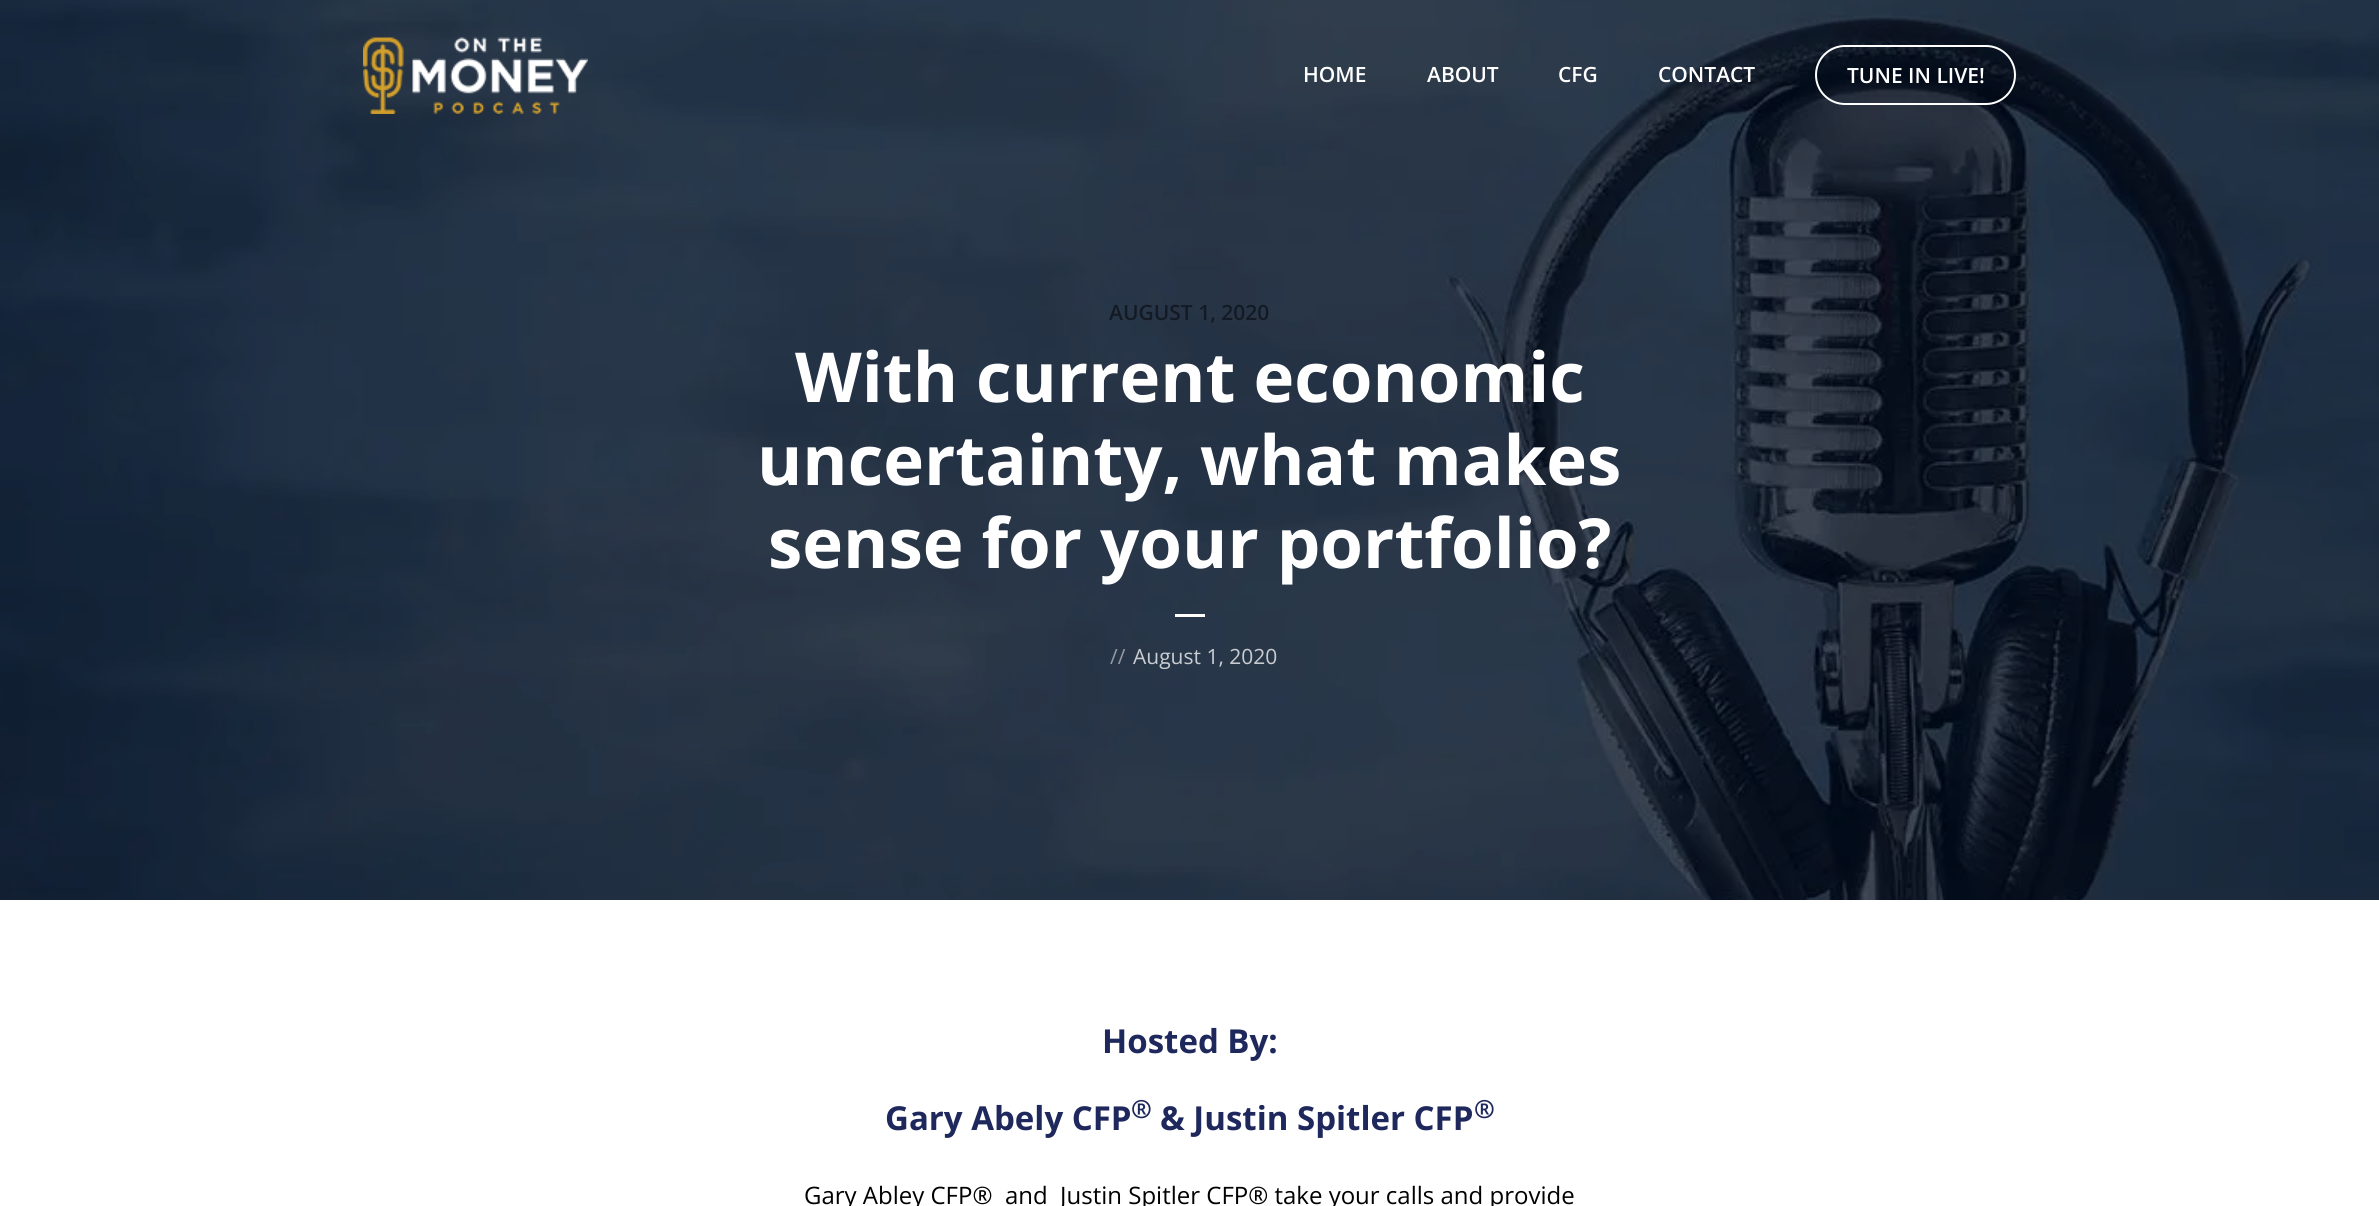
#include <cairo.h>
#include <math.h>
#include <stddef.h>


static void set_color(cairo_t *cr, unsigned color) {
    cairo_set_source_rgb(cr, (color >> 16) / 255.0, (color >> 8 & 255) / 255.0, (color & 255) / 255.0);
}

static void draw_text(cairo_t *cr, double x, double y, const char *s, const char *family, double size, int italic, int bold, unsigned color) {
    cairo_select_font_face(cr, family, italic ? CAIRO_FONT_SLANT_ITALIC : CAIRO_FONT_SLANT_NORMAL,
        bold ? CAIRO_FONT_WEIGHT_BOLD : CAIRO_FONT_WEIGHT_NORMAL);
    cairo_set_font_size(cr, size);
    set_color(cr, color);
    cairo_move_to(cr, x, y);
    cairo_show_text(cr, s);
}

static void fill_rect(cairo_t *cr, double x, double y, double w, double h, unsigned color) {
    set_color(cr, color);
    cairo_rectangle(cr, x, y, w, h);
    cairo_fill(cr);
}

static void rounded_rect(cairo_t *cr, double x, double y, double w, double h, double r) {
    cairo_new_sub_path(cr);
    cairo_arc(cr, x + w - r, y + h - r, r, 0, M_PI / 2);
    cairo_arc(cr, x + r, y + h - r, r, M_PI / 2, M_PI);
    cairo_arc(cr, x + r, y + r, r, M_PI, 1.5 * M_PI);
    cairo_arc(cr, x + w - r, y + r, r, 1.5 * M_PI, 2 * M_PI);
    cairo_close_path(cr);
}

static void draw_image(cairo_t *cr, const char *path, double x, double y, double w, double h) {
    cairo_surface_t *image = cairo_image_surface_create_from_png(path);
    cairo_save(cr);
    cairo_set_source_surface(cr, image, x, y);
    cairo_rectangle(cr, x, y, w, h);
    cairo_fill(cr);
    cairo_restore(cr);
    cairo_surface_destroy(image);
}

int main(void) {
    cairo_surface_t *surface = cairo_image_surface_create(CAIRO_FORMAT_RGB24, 2379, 1206);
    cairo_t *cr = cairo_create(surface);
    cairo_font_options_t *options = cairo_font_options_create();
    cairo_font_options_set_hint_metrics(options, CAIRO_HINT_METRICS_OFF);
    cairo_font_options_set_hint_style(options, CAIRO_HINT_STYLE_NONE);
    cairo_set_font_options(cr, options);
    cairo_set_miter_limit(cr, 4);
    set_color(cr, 0xFFFFFF);
    cairo_paint(cr);
    draw_image(cr, "assets/img2.png", 0, 0, 2379, 900);
    draw_image(cr, "assets/img1.png", 363, 37, 225, 77);
    draw_text(cr, 1303, 82, "HOME", "Open Sans SemiBold", 21, 0, 0, 0xFFFFFF);
    draw_text(cr, 1427, 82, "ABOUT", "Open Sans SemiBold", 21, 0, 0, 0xFFFFFF);
    draw_text(cr, 1558, 82, "CFG", "Open Sans SemiBold", 21, 0, 0, 0xFFFFFF);
    draw_text(cr, 1658, 82, "CONTACT", "Open Sans SemiBold", 21, 0, 0, 0xFFFFFF);
    rounded_rect(cr, 1816, 46, 199, 58, 29);
    cairo_stroke(cr);
    draw_text(cr, 1847, 83, "TUNE IN LIVE!", "Open Sans SemiBold", 21, 0, 0, 0xFFFFFF);
    draw_text(cr, 1109, 320, "AUGUST 1, 2020", "Open Sans SemiBold", 21, 0, 0, 0x131A23);
    draw_text(cr, 795, 402, "With current economic", "Open Sans", 69, 0, 1, 0xFFFFFF);
    draw_text(cr, 757, 485, "uncertainty, what makes", "Open Sans", 69, 0, 1, 0xFFFFFF);
    draw_text(cr, 768, 568, "sense for your portfolio?", "Open Sans", 69, 0, 1, 0xFFFFFF);
    fill_rect(cr, 1175, 614, 30, 3, 0xFFFFFF);
    draw_text(cr, 1110, 664, "//", "Open Sans", 21, 0, 0, 0x939AA4);
    draw_text(cr, 1133, 664, "August 1, 2020", "Open Sans", 21, 0, 0, 0xC9CDD1);
    draw_text(cr, 1102, 1053, "Hosted By:", "Open Sans", 33, 0, 1, 0x1F285C);
    draw_text(cr, 885, 1130, "Gary Abely CFP", "Open Sans", 33, 0, 1, 0x1F285C);
    draw_text(cr, 1131, 1118, "®", "Open Sans", 25, 0, 1, 0x1F285C);
    draw_text(cr, 1160, 1130, "& Justin Spitler CFP", "Open Sans", 33, 0, 1, 0x1F285C);
    draw_text(cr, 1474, 1118, "®", "Open Sans", 25, 0, 1, 0x1F285C);
    draw_text(cr, 804, 1204, "Gary Abley CFP®  and  Justin Spitler CFP® take your calls and provide", "Open Sans", 24, 0, 0, 0x000000);
    cairo_surface_write_to_png(surface, "output.png");
    cairo_font_options_destroy(options);
    cairo_destroy(cr);
    cairo_surface_destroy(surface);
    return 0;
}
